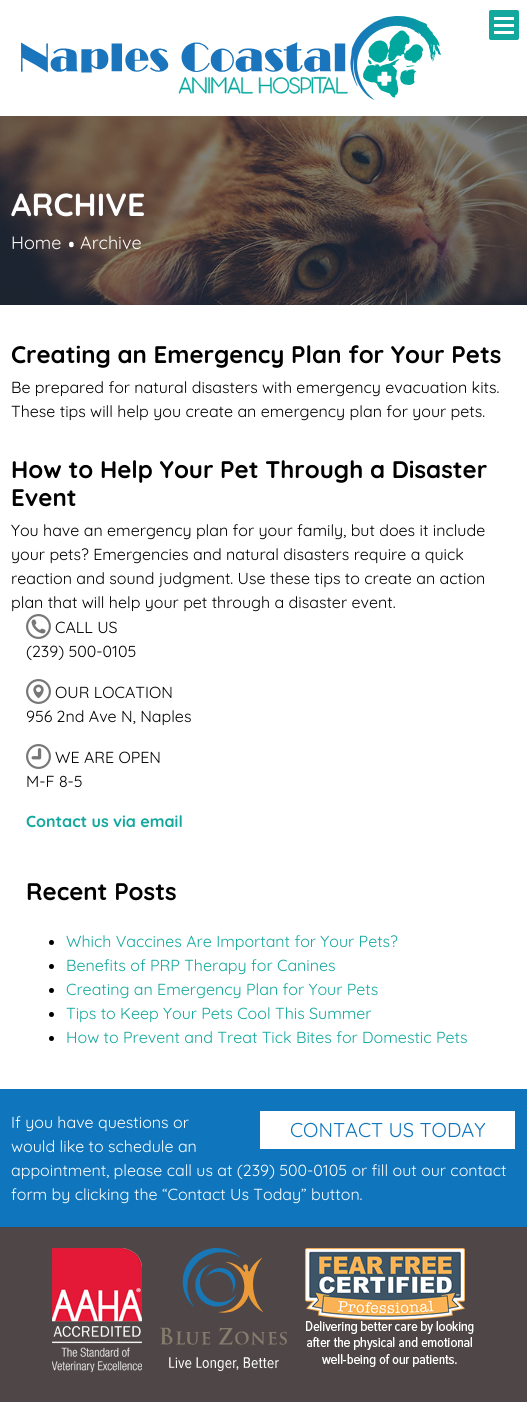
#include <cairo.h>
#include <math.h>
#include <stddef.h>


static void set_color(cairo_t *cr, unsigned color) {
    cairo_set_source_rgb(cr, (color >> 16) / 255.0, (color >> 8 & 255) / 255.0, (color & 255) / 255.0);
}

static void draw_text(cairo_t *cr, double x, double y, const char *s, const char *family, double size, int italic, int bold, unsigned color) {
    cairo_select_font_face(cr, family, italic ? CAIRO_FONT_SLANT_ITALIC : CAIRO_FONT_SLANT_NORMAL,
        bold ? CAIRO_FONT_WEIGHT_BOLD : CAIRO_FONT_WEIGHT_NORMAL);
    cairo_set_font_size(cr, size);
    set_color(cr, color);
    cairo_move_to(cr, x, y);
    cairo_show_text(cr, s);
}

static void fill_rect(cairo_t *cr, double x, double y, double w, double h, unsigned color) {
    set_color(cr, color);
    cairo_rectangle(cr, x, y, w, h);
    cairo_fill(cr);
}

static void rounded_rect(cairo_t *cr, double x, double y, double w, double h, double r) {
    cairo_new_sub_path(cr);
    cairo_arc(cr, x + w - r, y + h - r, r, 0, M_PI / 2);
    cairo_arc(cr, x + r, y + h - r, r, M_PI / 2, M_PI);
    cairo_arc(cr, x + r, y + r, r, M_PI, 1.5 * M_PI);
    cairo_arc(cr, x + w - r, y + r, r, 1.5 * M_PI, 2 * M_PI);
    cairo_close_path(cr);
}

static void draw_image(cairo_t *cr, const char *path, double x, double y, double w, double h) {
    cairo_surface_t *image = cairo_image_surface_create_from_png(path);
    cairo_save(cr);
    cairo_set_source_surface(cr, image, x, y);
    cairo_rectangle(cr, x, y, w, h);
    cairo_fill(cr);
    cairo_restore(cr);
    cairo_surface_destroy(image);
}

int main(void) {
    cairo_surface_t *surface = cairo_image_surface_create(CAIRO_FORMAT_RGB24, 527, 1402);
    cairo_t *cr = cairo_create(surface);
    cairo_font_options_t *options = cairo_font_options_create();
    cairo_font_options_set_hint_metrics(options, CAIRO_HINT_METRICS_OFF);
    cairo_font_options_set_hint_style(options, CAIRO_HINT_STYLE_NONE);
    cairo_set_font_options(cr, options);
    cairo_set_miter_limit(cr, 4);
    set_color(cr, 0xFFFFFF);
    cairo_paint(cr);
    draw_image(cr, "assets/img1.png", 21, 16, 420, 84);
    set_color(cr, 0x13A89D);
    rounded_rect(cr, 489, 10, 30, 30, 2);
    cairo_fill(cr);
    fill_rect(cr, 494, 17, 20, 3, 0xFFFFFF);
    fill_rect(cr, 494, 24, 20, 3, 0xFFFFFF);
    fill_rect(cr, 494, 31, 20, 3, 0xFFFFFF);
    draw_image(cr, "assets/img2.png", 0, 116, 527, 189);
    draw_text(cr, 11, 216, "ARCHIVE", "Quicksand", 32, 0, 1, 0xFFFFFF);
    draw_text(cr, 11, 249, "Home", "Quicksand", 18, 0, 0, 0xFFFFFF);
    draw_text(cr, 66, 261, "·", "Quicksand", 55, 0, 0, 0xFFFFFF);
    draw_text(cr, 80, 249, "Archive", "Quicksand", 18, 0, 0, 0xFFFFFF);
    draw_text(cr, 11, 363, "Creating an Emergency Plan for Your Pets", "Quicksand", 24, 0, 1, 0x000000);
    draw_text(cr, 11, 393, "Be prepared for natural disasters with emergency evacuation kits.", "Quicksand", 16, 0, 0, 0x000000);
    draw_text(cr, 11, 417, "These tips will help you create an emergency plan for your pets.", "Quicksand", 16, 0, 0, 0x000000);
    draw_text(cr, 11, 478, "How to Help Your Pet Through a Disaster", "Quicksand", 24, 0, 1, 0x000000);
    draw_text(cr, 11, 506, "Event", "Quicksand", 24, 0, 1, 0x000000);
    draw_text(cr, 11, 536, "You have an emergency plan for your family, but does it include", "Quicksand", 16, 0, 0, 0x000000);
    draw_text(cr, 11, 560, "your pets? Emergencies and natural disasters require a quick", "Quicksand", 16, 0, 0, 0x000000);
    draw_text(cr, 11, 584, "reaction and sound judgment. Use these tips to create an action", "Quicksand", 16, 0, 0, 0x000000);
    draw_text(cr, 11, 608, "plan that will help your pet through a disaster event.", "Quicksand", 16, 0, 0, 0x000000);
    draw_image(cr, "assets/img3.png", 26, 614, 25, 25);
    draw_text(cr, 55, 633, "CALL US", "Quicksand", 16, 0, 0, 0x000000);
    draw_text(cr, 26, 657, "(239) 500-0105", "Quicksand", 16, 0, 0, 0x000000);
    draw_image(cr, "assets/img4.png", 26, 679, 25, 25);
    draw_text(cr, 55, 698, "OUR LOCATION", "Quicksand", 16, 0, 0, 0x000000);
    draw_text(cr, 26, 722, "956 2nd Ave N, Naples", "Quicksand", 16, 0, 0, 0x000000);
    draw_image(cr, "assets/img5.png", 26, 744, 25, 25);
    draw_text(cr, 55, 763, "WE ARE OPEN", "Quicksand", 16, 0, 0, 0x000000);
    draw_text(cr, 26, 787, "M-F 8-5", "Quicksand", 16, 0, 0, 0x000000);
    draw_text(cr, 26, 827, "Contact us via email", "Quicksand", 16, 0, 1, 0x13A89D);
    draw_text(cr, 26, 900, "Recent Posts", "Quicksand", 24, 0, 1, 0x000000);
    cairo_new_path(cr);
    cairo_arc(cr, 51.5, 942.5, 2.5, 0, 2 * M_PI);
    cairo_fill(cr);
    draw_text(cr, 66, 947, "Which Vaccines Are Important for Your Pets?", "Quicksand", 16, 0, 0, 0x13A89D);
    set_color(cr, 0x000000);
    cairo_new_path(cr);
    cairo_arc(cr, 51.5, 966.5, 2.5, 0, 2 * M_PI);
    cairo_fill(cr);
    draw_text(cr, 66, 971, "Benefits of PRP Therapy for Canines", "Quicksand", 16, 0, 0, 0x13A89D);
    set_color(cr, 0x000000);
    cairo_new_path(cr);
    cairo_arc(cr, 51.5, 990.5, 2.5, 0, 2 * M_PI);
    cairo_fill(cr);
    draw_text(cr, 66, 995, "Creating an Emergency Plan for Your Pets", "Quicksand", 16, 0, 0, 0x13A89D);
    set_color(cr, 0x000000);
    cairo_new_path(cr);
    cairo_arc(cr, 51.5, 1014.5, 2.5, 0, 2 * M_PI);
    cairo_fill(cr);
    draw_text(cr, 66, 1019, "Tips to Keep Your Pets Cool This Summer", "Quicksand", 16, 0, 0, 0x13A89D);
    set_color(cr, 0x000000);
    cairo_new_path(cr);
    cairo_arc(cr, 51.5, 1038.5, 2.5, 0, 2 * M_PI);
    cairo_fill(cr);
    draw_text(cr, 66, 1043, "How to Prevent and Treat Tick Bites for Domestic Pets", "Quicksand", 16, 0, 0, 0x13A89D);
    fill_rect(cr, 0, 1089, 527, 138, 0x0F75BD);
    draw_text(cr, 11, 1128, "If you have questions or", "Quicksand", 16, 0, 0, 0xFFFFFF);
    fill_rect(cr, 260, 1111, 255, 38, 0xFFFFFF);
    draw_text(cr, 290, 1137, "CONTACT US TODAY", "Quicksand", 20, 0, 0, 0x0F75BD);
    draw_text(cr, 11, 1152, "would like to schedule an", "Quicksand", 16, 0, 0, 0xFFFFFF);
    draw_text(cr, 11, 1176, "appointment, please call us at (239) 500-0105 or fill out our contact", "Quicksand", 16, 0, 0, 0xFFFFFF);
    draw_text(cr, 11, 1200, "form by clicking the “Contact Us Today” button.", "Quicksand", 16, 0, 0, 0xFFFFFF);
    fill_rect(cr, 0, 1227, 527, 175, 0x4E4647);
    draw_image(cr, "assets/img6.png", 52, 1248, 90, 124);
    draw_image(cr, "assets/img7.png", 160, 1248, 127, 123);
    draw_image(cr, "assets/img8.png", 305, 1248, 160, 72);
    draw_image(cr, "assets/img9.png", 306, 1321, 168, 46);
    cairo_surface_write_to_png(surface, "output.png");
    cairo_font_options_destroy(options);
    cairo_destroy(cr);
    cairo_surface_destroy(surface);
    return 0;
}
